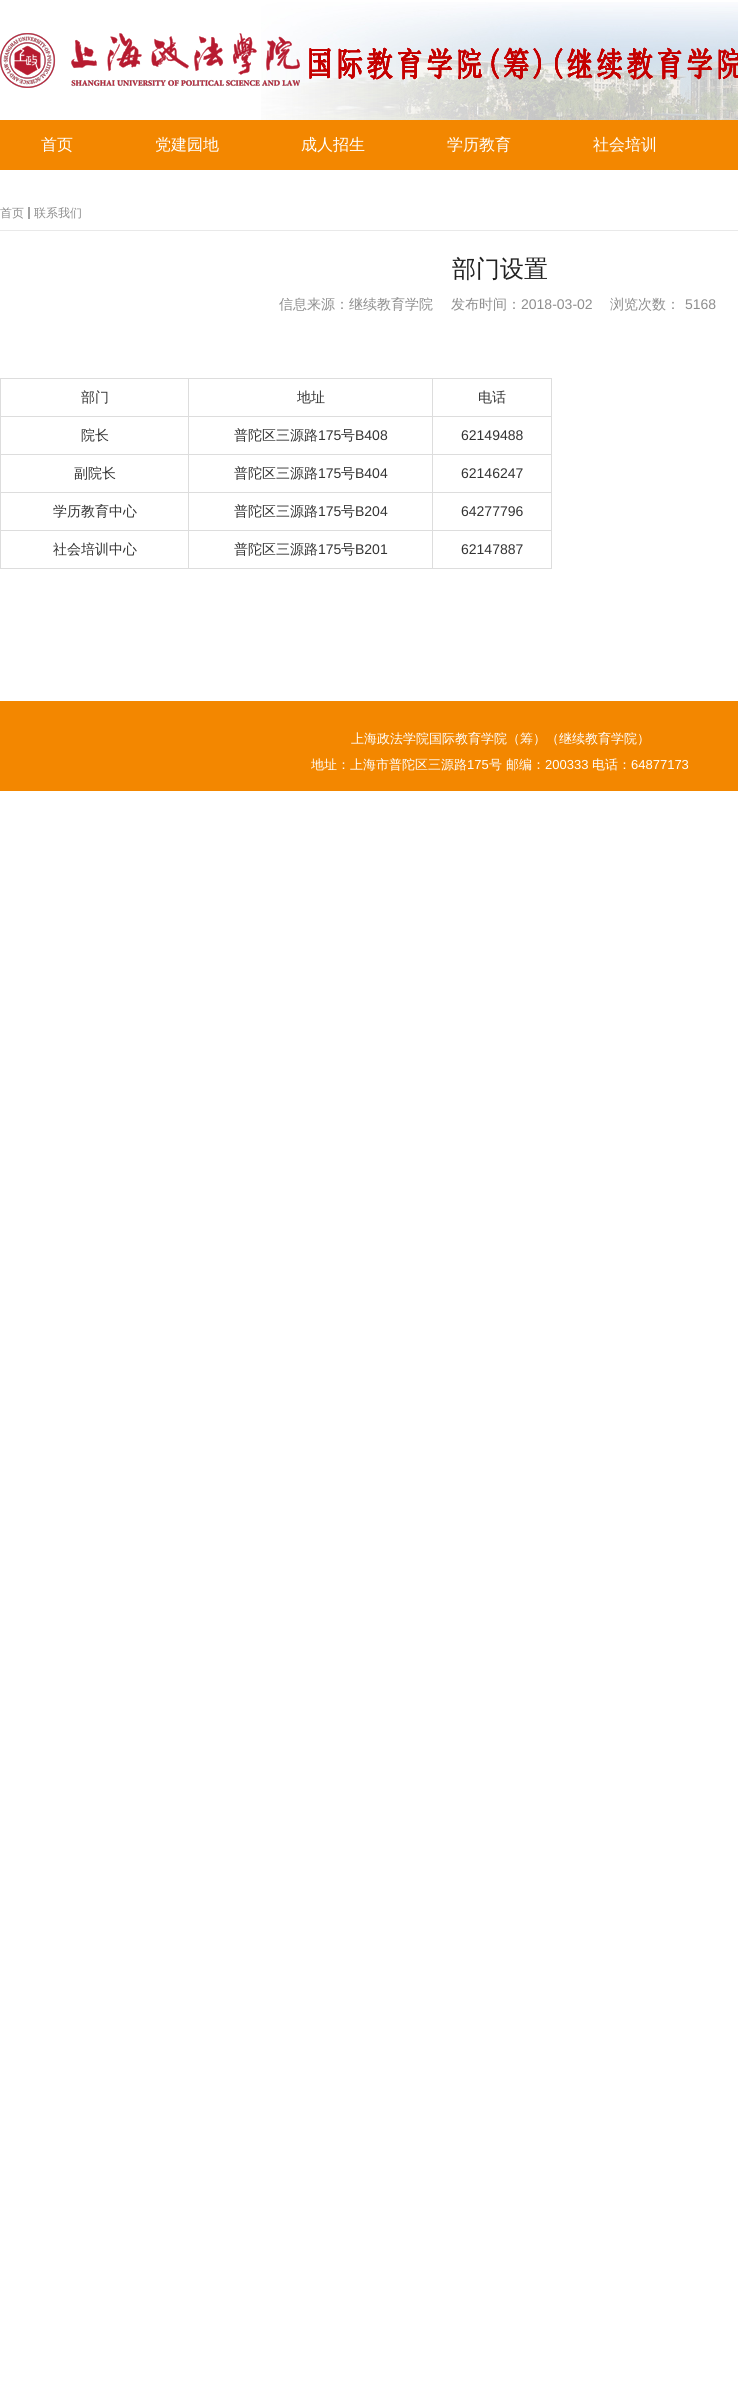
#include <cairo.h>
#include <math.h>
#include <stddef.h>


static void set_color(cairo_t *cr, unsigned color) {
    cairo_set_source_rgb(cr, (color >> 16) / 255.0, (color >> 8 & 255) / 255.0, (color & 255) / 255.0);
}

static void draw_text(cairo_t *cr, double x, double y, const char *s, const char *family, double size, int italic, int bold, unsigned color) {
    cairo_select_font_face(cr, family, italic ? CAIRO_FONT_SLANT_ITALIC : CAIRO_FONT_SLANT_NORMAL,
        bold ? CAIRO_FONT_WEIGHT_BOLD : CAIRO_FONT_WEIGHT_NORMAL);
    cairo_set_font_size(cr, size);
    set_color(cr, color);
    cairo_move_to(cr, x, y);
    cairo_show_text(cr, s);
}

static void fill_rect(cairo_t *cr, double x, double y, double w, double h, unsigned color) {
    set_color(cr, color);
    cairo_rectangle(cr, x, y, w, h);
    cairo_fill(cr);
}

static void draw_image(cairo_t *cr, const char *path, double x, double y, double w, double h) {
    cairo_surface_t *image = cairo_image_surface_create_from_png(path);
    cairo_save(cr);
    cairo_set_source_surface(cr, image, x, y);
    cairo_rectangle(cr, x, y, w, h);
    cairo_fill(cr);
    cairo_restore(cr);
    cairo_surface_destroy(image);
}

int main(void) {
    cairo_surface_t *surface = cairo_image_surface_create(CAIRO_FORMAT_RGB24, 738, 2390);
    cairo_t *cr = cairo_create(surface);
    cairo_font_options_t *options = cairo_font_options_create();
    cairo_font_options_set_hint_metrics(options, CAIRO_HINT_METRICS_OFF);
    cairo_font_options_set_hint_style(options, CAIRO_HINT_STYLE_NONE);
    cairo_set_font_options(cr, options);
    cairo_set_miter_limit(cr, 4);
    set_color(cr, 0xFFFFFF);
    cairo_paint(cr);
    draw_image(cr, "assets/img1.png", 261, 2, 477, 118);
    draw_image(cr, "assets/img2.png", 0, 33, 300, 55);
    draw_image(cr, "assets/img3.png", 309, 47, 429, 33);
    fill_rect(cr, 0, 120, 738, 50, 0xF38700);
    draw_text(cr, 41, 150, "首页", "WenQuanYi Zen Hei Medium", 16, 0, 0, 0xFFFFFF);
    draw_text(cr, 155, 150, "党建园地", "WenQuanYi Zen Hei Medium", 16, 0, 0, 0xFFFFFF);
    draw_text(cr, 301, 150, "成人招生", "WenQuanYi Zen Hei Medium", 16, 0, 0, 0xFFFFFF);
    draw_text(cr, 447, 150, "学历教育", "WenQuanYi Zen Hei Medium", 16, 0, 0, 0xFFFFFF);
    draw_text(cr, 593, 150, "社会培训", "WenQuanYi Zen Hei Medium", 16, 0, 0, 0xFFFFFF);
    fill_rect(cr, 0, 230, 738, 1, 0xE9E9E9);
    draw_text(cr, 0, 217, "首页", "WenQuanYi Zen Hei Medium", 12, 0, 0, 0x8E8E8E);
    fill_rect(cr, 28, 207, 2, 12, 0xA2A2A2);
    draw_text(cr, 34, 217, "联系我们", "WenQuanYi Zen Hei Medium", 12, 0, 0, 0x8E8E8E);
    draw_text(cr, 452, 277, "部门设置", "WenQuanYi Zen Hei Medium", 24, 0, 0, 0x212121);
    draw_text(cr, 279, 309, "信息来源：继续教育学院", "WenQuanYi Zen Hei Medium", 14, 0, 0, 0x8E8E8E);
    draw_text(cr, 451, 309, "发布时间：", "WenQuanYi Zen Hei Medium", 14, 0, 0, 0x8E8E8E);
    draw_text(cr, 521, 309, "2018-03-02", "Liberation Sans", 14, 0, 0, 0x8E8E8E);
    draw_text(cr, 610, 309, "浏览次数：", "WenQuanYi Zen Hei Medium", 14, 0, 0, 0x8E8E8E);
    draw_text(cr, 685, 309, "5168", "Liberation Sans", 14, 0, 0, 0x8E8E8E);
    fill_rect(cr, 0, 378, 552, 1, 0xDDDDDD);
    fill_rect(cr, 551, 416, 1, 153, 0xDDDDDD);
    fill_rect(cr, 551, 378, 1, 39, 0xDDDDDD);
    fill_rect(cr, 432, 568, 120, 1, 0xDDDDDD);
    fill_rect(cr, 432, 530, 1, 39, 0xDDDDDD);
    fill_rect(cr, 432, 530, 120, 1, 0xDDDDDD);
    fill_rect(cr, 432, 492, 1, 39, 0xDDDDDD);
    fill_rect(cr, 432, 492, 120, 1, 0xDDDDDD);
    fill_rect(cr, 432, 454, 1, 39, 0xDDDDDD);
    fill_rect(cr, 432, 454, 120, 1, 0xDDDDDD);
    fill_rect(cr, 432, 416, 1, 39, 0xDDDDDD);
    fill_rect(cr, 432, 416, 120, 1, 0xDDDDDD);
    fill_rect(cr, 432, 378, 1, 39, 0xDDDDDD);
    fill_rect(cr, 188, 568, 245, 1, 0xDDDDDD);
    fill_rect(cr, 188, 530, 1, 39, 0xDDDDDD);
    fill_rect(cr, 188, 530, 245, 1, 0xDDDDDD);
    fill_rect(cr, 188, 492, 1, 39, 0xDDDDDD);
    fill_rect(cr, 188, 492, 245, 1, 0xDDDDDD);
    fill_rect(cr, 188, 454, 1, 39, 0xDDDDDD);
    fill_rect(cr, 188, 454, 245, 1, 0xDDDDDD);
    fill_rect(cr, 188, 416, 1, 39, 0xDDDDDD);
    fill_rect(cr, 188, 416, 245, 1, 0xDDDDDD);
    fill_rect(cr, 188, 378, 1, 39, 0xDDDDDD);
    fill_rect(cr, 0, 568, 189, 1, 0xDDDDDD);
    fill_rect(cr, 0, 530, 1, 39, 0xDDDDDD);
    fill_rect(cr, 0, 530, 189, 1, 0xDDDDDD);
    fill_rect(cr, 0, 492, 1, 39, 0xDDDDDD);
    fill_rect(cr, 0, 492, 189, 1, 0xDDDDDD);
    fill_rect(cr, 0, 454, 1, 39, 0xDDDDDD);
    fill_rect(cr, 0, 454, 189, 1, 0xDDDDDD);
    fill_rect(cr, 0, 416, 1, 39, 0xDDDDDD);
    fill_rect(cr, 0, 416, 189, 1, 0xDDDDDD);
    fill_rect(cr, 0, 378, 1, 39, 0xDDDDDD);
    draw_text(cr, 81, 402, "部门", "WenQuanYi Zen Hei Medium", 14, 0, 0, 0x333333);
    draw_text(cr, 297, 402, "地址", "WenQuanYi Zen Hei Medium", 14, 0, 0, 0x333333);
    draw_text(cr, 478, 402, "电话", "WenQuanYi Zen Hei Medium", 14, 0, 0, 0x333333);
    draw_text(cr, 81, 440, "院长", "WenQuanYi Zen Hei Medium", 14, 0, 0, 0x333333);
    draw_text(cr, 234, 440, "普陀区三源路", "WenQuanYi Zen Hei Medium", 14, 0, 0, 0x333333);
    draw_text(cr, 318, 440, "175", "Liberation Sans", 14, 0, 0, 0x333333);
    draw_text(cr, 341, 440, "号", "WenQuanYi Zen Hei Medium", 14, 0, 0, 0x333333);
    draw_text(cr, 355, 440, "B408", "Liberation Sans", 14, 0, 0, 0x333333);
    draw_text(cr, 461, 440, "62149488", "Liberation Sans", 14, 0, 0, 0x333333);
    draw_text(cr, 74, 478, "副院长", "WenQuanYi Zen Hei Medium", 14, 0, 0, 0x333333);
    draw_text(cr, 234, 478, "普陀区三源路", "WenQuanYi Zen Hei Medium", 14, 0, 0, 0x333333);
    draw_text(cr, 318, 478, "175", "Liberation Sans", 14, 0, 0, 0x333333);
    draw_text(cr, 341, 478, "号", "WenQuanYi Zen Hei Medium", 14, 0, 0, 0x333333);
    draw_text(cr, 355, 478, "B404", "Liberation Sans", 14, 0, 0, 0x333333);
    draw_text(cr, 461, 478, "62146247", "Liberation Sans", 14, 0, 0, 0x333333);
    draw_text(cr, 53, 516, "学历教育中心", "WenQuanYi Zen Hei Medium", 14, 0, 0, 0x333333);
    draw_text(cr, 234, 516, "普陀区三源路", "WenQuanYi Zen Hei Medium", 14, 0, 0, 0x333333);
    draw_text(cr, 318, 516, "175", "Liberation Sans", 14, 0, 0, 0x333333);
    draw_text(cr, 341, 516, "号", "WenQuanYi Zen Hei Medium", 14, 0, 0, 0x333333);
    draw_text(cr, 355, 516, "B204", "Liberation Sans", 14, 0, 0, 0x333333);
    draw_text(cr, 461, 516, "64277796", "Liberation Sans", 14, 0, 0, 0x333333);
    draw_text(cr, 53, 554, "社会培训中心", "WenQuanYi Zen Hei Medium", 14, 0, 0, 0x333333);
    draw_text(cr, 234, 554, "普陀区三源路", "WenQuanYi Zen Hei Medium", 14, 0, 0, 0x333333);
    draw_text(cr, 318, 554, "175", "Liberation Sans", 14, 0, 0, 0x333333);
    draw_text(cr, 341, 554, "号", "WenQuanYi Zen Hei Medium", 14, 0, 0, 0x333333);
    draw_text(cr, 355, 554, "B201", "Liberation Sans", 14, 0, 0, 0x333333);
    draw_text(cr, 461, 554, "62147887", "Liberation Sans", 14, 0, 0, 0x333333);
    fill_rect(cr, 0, 701, 738, 90, 0xF38700);
    draw_text(cr, 351, 743, "上海政法学院国际教育学院（筹）（继续教育学院）", "WenQuanYi Zen Hei Medium", 13, 0, 0, 0xFFFFFF);
    draw_text(cr, 311, 769, "地址：上海市普陀区三源路", "WenQuanYi Zen Hei Medium", 13, 0, 0, 0xFFFFFF);
    draw_text(cr, 467, 769, "175", "Liberation Sans", 13, 0, 0, 0xFFFFFF);
    draw_text(cr, 489, 769, "号 邮编：", "WenQuanYi Zen Hei Medium", 13, 0, 0, 0xFFFFFF);
    draw_text(cr, 545, 769, "200333", "Liberation Sans", 13, 0, 0, 0xFFFFFF);
    draw_text(cr, 592, 769, "电话：", "WenQuanYi Zen Hei Medium", 13, 0, 0, 0xFFFFFF);
    draw_text(cr, 631, 769, "64877173", "Liberation Sans", 13, 0, 0, 0xFFFFFF);
    cairo_surface_write_to_png(surface, "output.png");
    cairo_font_options_destroy(options);
    cairo_destroy(cr);
    cairo_surface_destroy(surface);
    return 0;
}
